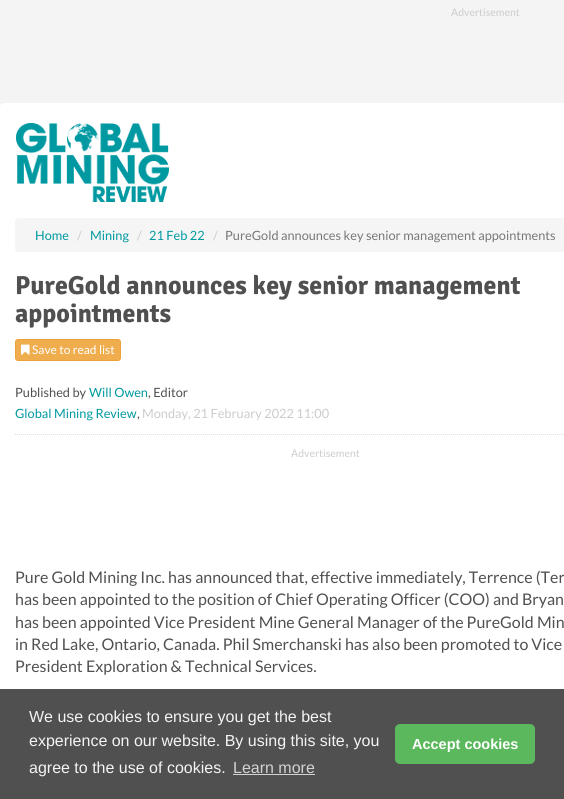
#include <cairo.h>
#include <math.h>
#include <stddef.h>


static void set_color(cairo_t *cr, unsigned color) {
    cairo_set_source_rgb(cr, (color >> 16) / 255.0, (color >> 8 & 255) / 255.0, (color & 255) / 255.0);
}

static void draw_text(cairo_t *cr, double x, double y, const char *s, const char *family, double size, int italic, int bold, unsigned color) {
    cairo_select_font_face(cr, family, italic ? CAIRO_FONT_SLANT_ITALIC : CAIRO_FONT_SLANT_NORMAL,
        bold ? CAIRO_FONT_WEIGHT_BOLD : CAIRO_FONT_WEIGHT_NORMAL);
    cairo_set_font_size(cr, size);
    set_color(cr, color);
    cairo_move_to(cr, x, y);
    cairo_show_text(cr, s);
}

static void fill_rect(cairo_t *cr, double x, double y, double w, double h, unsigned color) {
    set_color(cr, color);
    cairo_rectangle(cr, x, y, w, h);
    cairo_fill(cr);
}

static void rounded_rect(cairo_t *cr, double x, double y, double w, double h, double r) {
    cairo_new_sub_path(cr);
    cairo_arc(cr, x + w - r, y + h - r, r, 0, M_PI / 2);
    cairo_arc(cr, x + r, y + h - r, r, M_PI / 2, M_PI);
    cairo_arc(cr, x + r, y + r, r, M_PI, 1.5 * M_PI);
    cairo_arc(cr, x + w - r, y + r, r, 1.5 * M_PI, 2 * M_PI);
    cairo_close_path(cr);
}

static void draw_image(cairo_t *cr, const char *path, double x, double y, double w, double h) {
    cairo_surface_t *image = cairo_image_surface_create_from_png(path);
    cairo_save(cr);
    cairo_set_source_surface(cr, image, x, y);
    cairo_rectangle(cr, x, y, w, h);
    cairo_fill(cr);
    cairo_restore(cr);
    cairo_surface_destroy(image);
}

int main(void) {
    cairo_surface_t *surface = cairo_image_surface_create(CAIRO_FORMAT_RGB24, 564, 799);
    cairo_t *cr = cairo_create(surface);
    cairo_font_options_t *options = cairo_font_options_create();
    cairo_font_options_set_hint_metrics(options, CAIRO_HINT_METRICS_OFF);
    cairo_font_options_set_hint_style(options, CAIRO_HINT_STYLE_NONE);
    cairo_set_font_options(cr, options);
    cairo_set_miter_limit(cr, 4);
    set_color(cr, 0xF4F4F4);
    cairo_paint(cr);
    draw_text(cr, 451, 16, "Advertisement", "Lato", 10.5, 0, 0, 0xCCCCCC);
    set_color(cr, 0xFFFFFF);
    rounded_rect(cr, 0, 103, 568, 39, 4);
    cairo_fill(cr);
    fill_rect(cr, 0, 139, 564, 133, 0xFFFFFF);
    draw_image(cr, "assets/img1.png", 16, 123, 153, 79);
    set_color(cr, 0xF5F5F5);
    rounded_rect(cr, 15, 218, 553, 34, 4);
    cairo_fill(cr);
    draw_text(cr, 35, 240, "Home", "Lato", 12.75, 0, 0, 0x0099A0);
    draw_text(cr, 77, 240, "/", "Lato", 12.75, 0, 0, 0xCCCCCC);
    draw_text(cr, 90, 240, "Mining", "Lato", 12.75, 0, 0, 0x0099A0);
    draw_text(cr, 137, 240, "/", "Lato", 12.75, 0, 0, 0xCCCCCC);
    draw_text(cr, 149, 240, "21 Feb 22", "Lato", 12.75, 0, 0, 0x0099A0);
    draw_text(cr, 213, 240, "/", "Lato", 12.75, 0, 0, 0xCCCCCC);
    draw_text(cr, 225, 240, "PureGold announces key senior management appointments", "Lato", 12.75, 0, 0, 0x777777);
    set_color(cr, 0xFFFFFF);
    rounded_rect(cr, 0, 268, 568, 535, 4);
    cairo_fill(cr);
    draw_text(cr, 15, 294, "PureGold announces key senior management", "Signika", 26, 0, 1, 0x505050);
    draw_text(cr, 15, 322, "appointments", "Signika", 26, 0, 1, 0x505050);
    set_color(cr, 0xF0AD4E);
    rounded_rect(cr, 15.5, 339.5, 105, 21, 2.5);
    cairo_fill_preserve(cr);
    set_color(cr, 0xEEA236);
    cairo_set_line_width(cr, 1);
    cairo_stroke(cr);
    draw_image(cr, "assets/img2.png", 21, 344, 9, 11);
    draw_text(cr, 32, 354, "Save to read list", "Lato", 12, 0, 0, 0xFFFFFF);
    draw_text(cr, 15, 397, "Published by", "Lato", 12.75, 0, 0, 0x505050);
    draw_text(cr, 89, 397, "Will Owen", "Lato", 12.75, 0, 0, 0x0099A0);
    draw_text(cr, 148, 397, ", Editor", "Lato", 12.75, 0, 0, 0x505050);
    draw_text(cr, 15, 418, "Global Mining Review", "Lato", 12.75, 0, 0, 0x0099A0);
    draw_text(cr, 137, 418, ",", "Lato", 12.75, 0, 0, 0x505050);
    draw_text(cr, 142, 418, "Monday, 21 February 2022 11:00", "Lato", 12.75, 0, 0, 0xCCCCCC);
    cairo_new_path(cr);
    cairo_move_to(cr, 15, 434.5);
    cairo_line_to(cr, 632, 434.5);
    set_color(cr, 0xDDDDDD);
    cairo_set_dash(cr, (double[]){1, 1}, 2, 0);
    cairo_stroke(cr);
    draw_text(cr, 291, 457, "Advertisement", "Lato", 10.5, 0, 0, 0xCCCCCC);
    draw_text(cr, 15, 583, "Pure Gold Mining Inc. has announced that, effective immediately, Terrence (Ter", "Lato", 16, 0, 0, 0x505050);
    draw_text(cr, 15, 605, "has been appointed to the position of Chief Operating Officer (COO) and Bryan", "Lato", 16, 0, 0, 0x505050);
    draw_text(cr, 15, 628, "has been appointed Vice President Mine General Manager of the PureGold Min", "Lato", 16, 0, 0, 0x505050);
    draw_text(cr, 15, 650, "in Red Lake, Ontario, Canada. Phil Smerchanski has also been promoted to Vice", "Lato", 16, 0, 0, 0x505050);
    draw_text(cr, 15, 672, "President Exploration & Technical Services.", "Lato", 16, 0, 0, 0x505050);
    fill_rect(cr, 0, 689, 564, 110, 0x505050);
    draw_text(cr, 29, 722, "We use cookies to ensure you get the best", "Liberation Sans", 16, 0, 0, 0xF4F4F4);
    draw_text(cr, 29, 746, "experience on our website. By using this site, you", "Liberation Sans", 16, 0, 0, 0xF4F4F4);
    draw_text(cr, 29, 773, "agree to the use of cookies.", "Liberation Sans", 16, 0, 0, 0xF4F4F4);
    draw_text(cr, 233, 773, "Learn more", "Liberation Sans", 16, 0, 0, 0xD3D3D3);
    fill_rect(cr, 233, 774, 82, 1, 0xD3D3D3);
    set_color(cr, 0x5CB85C);
    rounded_rect(cr, 395, 724, 140, 40, 5);
    cairo_fill(cr);
    draw_text(cr, 412, 749, "Accept cookies", "Liberation Sans", 14.5, 0, 1, 0xFFFFFF);
    cairo_surface_write_to_png(surface, "output.png");
    cairo_font_options_destroy(options);
    cairo_destroy(cr);
    cairo_surface_destroy(surface);
    return 0;
}
